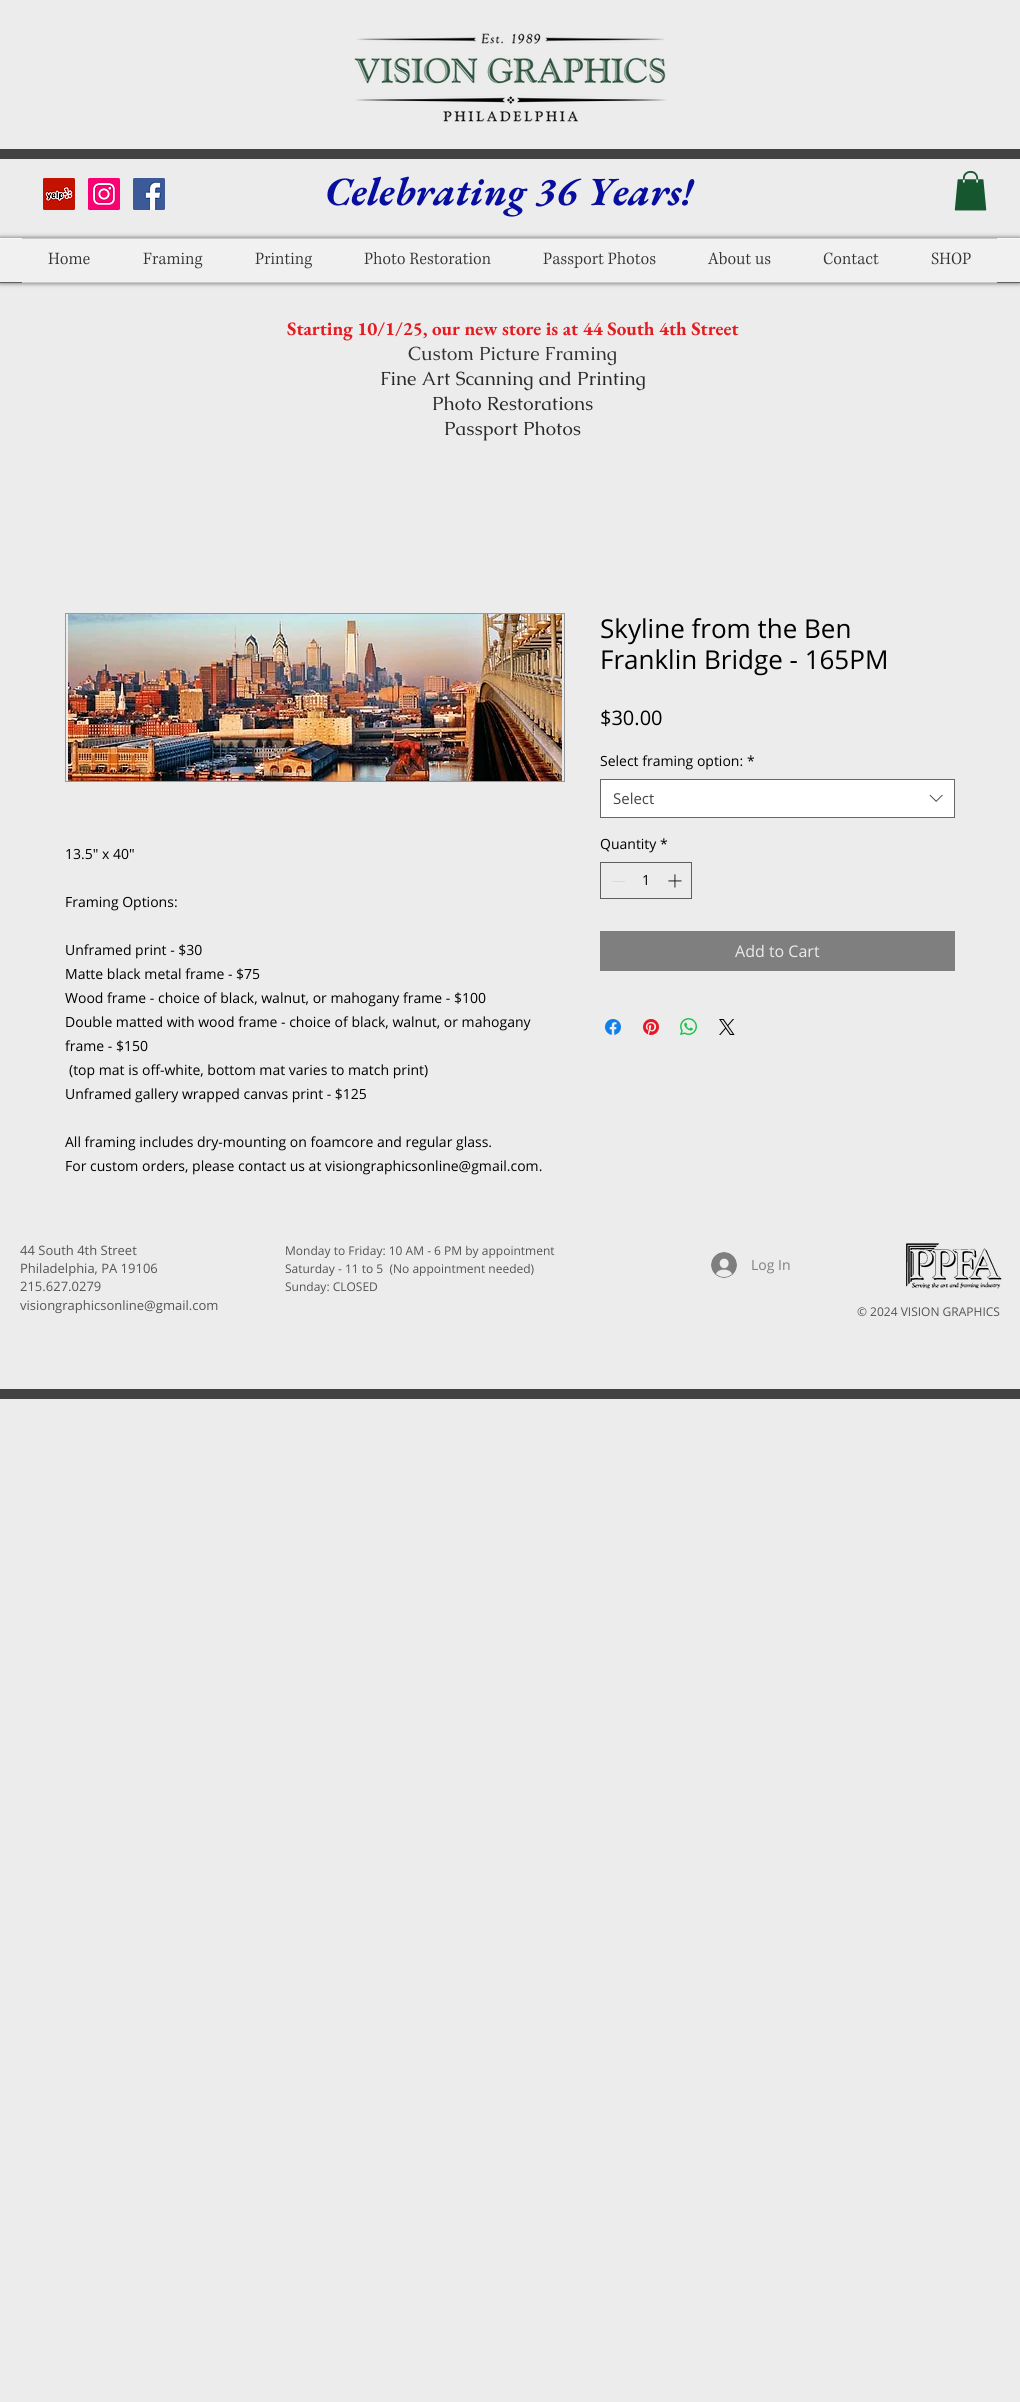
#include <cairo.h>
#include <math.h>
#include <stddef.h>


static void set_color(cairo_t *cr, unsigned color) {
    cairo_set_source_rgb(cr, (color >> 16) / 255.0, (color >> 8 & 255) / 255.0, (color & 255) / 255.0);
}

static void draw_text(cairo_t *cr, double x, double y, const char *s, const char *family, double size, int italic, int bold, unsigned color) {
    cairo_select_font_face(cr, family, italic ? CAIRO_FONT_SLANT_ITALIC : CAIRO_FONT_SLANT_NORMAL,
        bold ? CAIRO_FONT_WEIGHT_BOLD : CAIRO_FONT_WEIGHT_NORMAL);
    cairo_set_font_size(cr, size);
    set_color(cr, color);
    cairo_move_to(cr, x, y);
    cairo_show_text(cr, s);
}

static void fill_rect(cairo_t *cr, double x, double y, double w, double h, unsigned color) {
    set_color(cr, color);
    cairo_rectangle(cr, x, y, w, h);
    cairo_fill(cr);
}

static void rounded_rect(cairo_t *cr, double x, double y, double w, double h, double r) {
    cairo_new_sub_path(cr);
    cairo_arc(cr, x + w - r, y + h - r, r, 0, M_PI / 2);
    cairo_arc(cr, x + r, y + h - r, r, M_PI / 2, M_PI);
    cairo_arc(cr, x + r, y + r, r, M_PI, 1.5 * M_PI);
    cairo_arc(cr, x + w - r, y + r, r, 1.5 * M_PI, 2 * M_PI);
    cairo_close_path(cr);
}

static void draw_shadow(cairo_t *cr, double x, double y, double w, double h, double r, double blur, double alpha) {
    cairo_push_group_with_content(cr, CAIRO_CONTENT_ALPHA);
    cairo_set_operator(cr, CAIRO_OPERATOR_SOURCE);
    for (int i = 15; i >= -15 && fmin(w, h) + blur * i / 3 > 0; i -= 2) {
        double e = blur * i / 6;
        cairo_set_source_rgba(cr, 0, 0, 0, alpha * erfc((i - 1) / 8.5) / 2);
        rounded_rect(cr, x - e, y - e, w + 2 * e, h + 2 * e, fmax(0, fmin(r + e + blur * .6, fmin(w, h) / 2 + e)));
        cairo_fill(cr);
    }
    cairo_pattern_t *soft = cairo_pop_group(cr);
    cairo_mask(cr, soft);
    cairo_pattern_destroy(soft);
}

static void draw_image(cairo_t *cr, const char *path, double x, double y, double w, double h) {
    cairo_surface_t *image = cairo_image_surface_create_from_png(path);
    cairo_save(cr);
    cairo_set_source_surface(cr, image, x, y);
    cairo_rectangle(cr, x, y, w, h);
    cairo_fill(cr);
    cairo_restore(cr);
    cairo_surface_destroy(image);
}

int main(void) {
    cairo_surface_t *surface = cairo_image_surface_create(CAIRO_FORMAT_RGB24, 1020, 2402);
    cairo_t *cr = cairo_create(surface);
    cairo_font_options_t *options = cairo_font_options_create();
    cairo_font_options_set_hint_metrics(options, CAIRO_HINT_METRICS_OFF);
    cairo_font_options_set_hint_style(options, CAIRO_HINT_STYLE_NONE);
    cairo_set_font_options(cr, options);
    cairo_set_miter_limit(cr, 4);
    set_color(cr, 0xECECEC);
    cairo_paint(cr);
    draw_image(cr, "assets/img1.png", 354, 33, 312, 89);
    fill_rect(cr, 0, 149, 1020, 10, 0x424242);
    draw_image(cr, "assets/img2.png", 43, 178, 32, 32);
    draw_image(cr, "assets/img3.png", 88, 178, 32, 32);
    draw_image(cr, "assets/img4.png", 133, 178, 32, 32);
    draw_text(cr, 325, 205, "Celebrating 36 Years!", "EB Garamond", 40, 1, 1, 0x080F9E);
    draw_image(cr, "assets/img5.png", 954, 171, 33, 40);
    cairo_save(cr);
    cairo_set_fill_rule(cr, CAIRO_FILL_RULE_EVEN_ODD);
    cairo_new_path(cr);
    cairo_move_to(cr, 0, 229);
    cairo_line_to(cr, 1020, 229);
    cairo_line_to(cr, 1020, 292);
    cairo_line_to(cr, 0, 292);
    cairo_close_path(cr);
    cairo_move_to(cr, 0, 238);
    cairo_line_to(cr, 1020, 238);
    cairo_line_to(cr, 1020, 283);
    cairo_line_to(cr, 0, 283);
    cairo_close_path(cr);
    cairo_clip(cr);
    set_color(cr, 0x000000);
    draw_shadow(cr, 0, 238, 1020, 45, 0, 2.5, 0.6);
    cairo_restore(cr);
    draw_image(cr, "assets/img6.png", 0, 239, 1020, 43);
    fill_rect(cr, 0, 282, 1020, 1, 0x606060);
    fill_rect(cr, 0, 238, 1020, 1, 0xF9F9F9);
    fill_rect(cr, 22, 238, 975, 1, 0xCACACA);
    fill_rect(cr, 22, 282, 975, 1, 0xCACACA);
    draw_image(cr, "assets/img7.png", 48, 252, 42, 13);
    draw_image(cr, "assets/img8.png", 143, 252, 60, 17);
    draw_image(cr, "assets/img9.png", 255, 252, 58, 17);
    draw_image(cr, "assets/img10.png", 364, 252, 127, 13);
    draw_image(cr, "assets/img11.png", 543, 252, 113, 17);
    draw_image(cr, "assets/img12.png", 707, 252, 64, 13);
    draw_image(cr, "assets/img13.png", 823, 252, 56, 13);
    draw_image(cr, "assets/img14.png", 931, 252, 40, 13);
    draw_text(cr, 287, 335, "Starting 10/1/25, our new store is at 44 South 4th Street", "EB Garamond", 19, 0, 1, 0xE21C21);
    draw_text(cr, 408, 360, "Custom Picture Framing", "Caudex", 19, 0, 0, 0x333333);
    draw_text(cr, 380, 385, "Fine Art Scanning and Printing", "Caudex", 19, 0, 0, 0x2A2A2A);
    draw_text(cr, 432, 410, "Photo Restorations", "Caudex", 19, 0, 0, 0x2A2A2A);
    draw_text(cr, 444, 435, "Passport Photos", "Caudex", 19, 0, 0, 0x2A2A2A);
    draw_text(cr, 600, 638, "Skyline from the Ben", "Open Sans", 26, 0, 0, 0x000000);
    draw_text(cr, 600, 669, "Franklin Bridge - 165PM", "Open Sans", 26, 0, 0, 0x000000);
    draw_text(cr, 600, 725, "$30.00", "Open Sans", 20, 0, 0, 0x000000);
    draw_text(cr, 600, 766, "Select framing option:", "Open Sans", 14, 0, 0, 0x000000);
    draw_text(cr, 747, 766, "*", "Open Sans", 14, 0, 0, 0x000000);
    set_color(cr, 0xFFFFFF);
    cairo_rectangle(cr, 600.5, 779.5, 354, 38);
    cairo_fill_preserve(cr);
    set_color(cr, 0x666666);
    cairo_set_line_width(cr, 1);
    cairo_stroke(cr);
    draw_text(cr, 613, 804, "Select", "Open Sans", 15, 0, 0, 0x444444);
    draw_image(cr, "assets/img15.png", 929, 794, 14, 8);
    draw_text(cr, 600, 849, "Quantity", "Open Sans", 14, 0, 0, 0x000000);
    draw_text(cr, 660, 849, "*", "Open Sans", 14, 0, 0, 0x000000);
    cairo_rectangle(cr, 600.5, 862.5, 91, 36);
    set_color(cr, 0x5E5E5E);
    cairo_stroke(cr);
    fill_rect(cr, 612, 881, 13, 1, 0xDADADA);
    draw_text(cr, 642, 885, "1", "Open Sans", 14, 0, 0, 0x000000);
    draw_image(cr, "assets/img16.png", 668, 874, 14, 14);
    fill_rect(cr, 600, 931, 355, 40, 0x7F7F7F);
    draw_text(cr, 735, 957, "Add to Cart", "Open Sans", 16, 0, 0, 0xECECEC);
    draw_image(cr, "assets/img17.png", 605, 1019, 16, 16);
    draw_image(cr, "assets/img18.png", 643, 1019, 16, 16);
    draw_image(cr, "assets/img19.png", 680, 1018, 17, 17);
    draw_image(cr, "assets/img20.png", 719, 1019, 16, 16);
    cairo_rectangle(cr, 65.5, 613.5, 499, 168);
    set_color(cr, 0x999999);
    cairo_stroke(cr);
    draw_image(cr, "assets/img21.png", 68, 614, 494, 167);
    draw_text(cr, 65, 859, "13.5\" x 40\"", "Open Sans", 14, 0, 0, 0x000000);
    draw_text(cr, 65, 907, "Framing Options:", "Open Sans", 14, 0, 0, 0x000000);
    draw_text(cr, 65, 955, "Unframed print - $30", "Open Sans", 14, 0, 0, 0x000000);
    draw_text(cr, 65, 979, "Matte black metal frame - $75", "Open Sans", 14, 0, 0, 0x000000);
    draw_text(cr, 65, 1003, "Wood frame - choice of black, walnut, or mahogany frame - $100", "Open Sans", 14, 0, 0, 0x000000);
    draw_text(cr, 65, 1027, "Double matted with wood frame - choice of black, walnut, or mahogany", "Open Sans", 14, 0, 0, 0x000000);
    draw_text(cr, 65, 1051, "frame - $150", "Open Sans", 14, 0, 0, 0x000000);
    draw_text(cr, 69, 1075, "(top mat is off-white, bottom mat varies to match print)", "Open Sans", 14, 0, 0, 0x000000);
    draw_text(cr, 65, 1099, "Unframed gallery wrapped canvas print - $125", "Open Sans", 14, 0, 0, 0x000000);
    draw_text(cr, 65, 1147, "All framing includes dry-mounting on foamcore and regular glass.", "Open Sans", 14, 0, 0, 0x000000);
    draw_text(cr, 65, 1171, "For custom orders, please contact us at visiongraphicsonline@gmail.com.", "Open Sans", 14, 0, 0, 0x000000);
    draw_text(cr, 20, 1255, "44 South 4th Street", "Open Sans", 13, 0, 0, 0x545454);
    draw_text(cr, 20, 1273, "Philadelphia, PA 19106", "Open Sans", 13, 0, 0, 0x545454);
    draw_text(cr, 20, 1291, "215.627.0279", "Open Sans", 13, 0, 0, 0x545454);
    draw_text(cr, 20, 1310, "visiongraphicsonline@gmail.com", "Open Sans", 13, 0, 0, 0x545454);
    draw_text(cr, 285, 1255, "Monday to Friday: 10 AM - 6 PM by appointment", "Open Sans", 12, 0, 0, 0x545454);
    draw_text(cr, 285, 1273, "Saturday - 11 to 5  (No appointment needed)", "Open Sans", 12, 0, 0, 0x545454);
    draw_text(cr, 285, 1291, "Sunday: CLOSED", "Open Sans", 12, 0, 0, 0x545454);
    draw_image(cr, "assets/img22.png", 711, 1252, 26, 26);
    draw_text(cr, 751, 1270, "Log In", "Open Sans", 14, 0, 0, 0x7F7F7F);
    draw_image(cr, "assets/img23.png", 905, 1243, 97, 46);
    draw_text(cr, 857, 1316, "© 2024 VISION GRAPHICS", "Open Sans", 12, 0, 0, 0x545454);
    fill_rect(cr, 0, 1389, 1020, 10, 0x424242);
    cairo_surface_write_to_png(surface, "output.png");
    cairo_font_options_destroy(options);
    cairo_destroy(cr);
    cairo_surface_destroy(surface);
    return 0;
}
